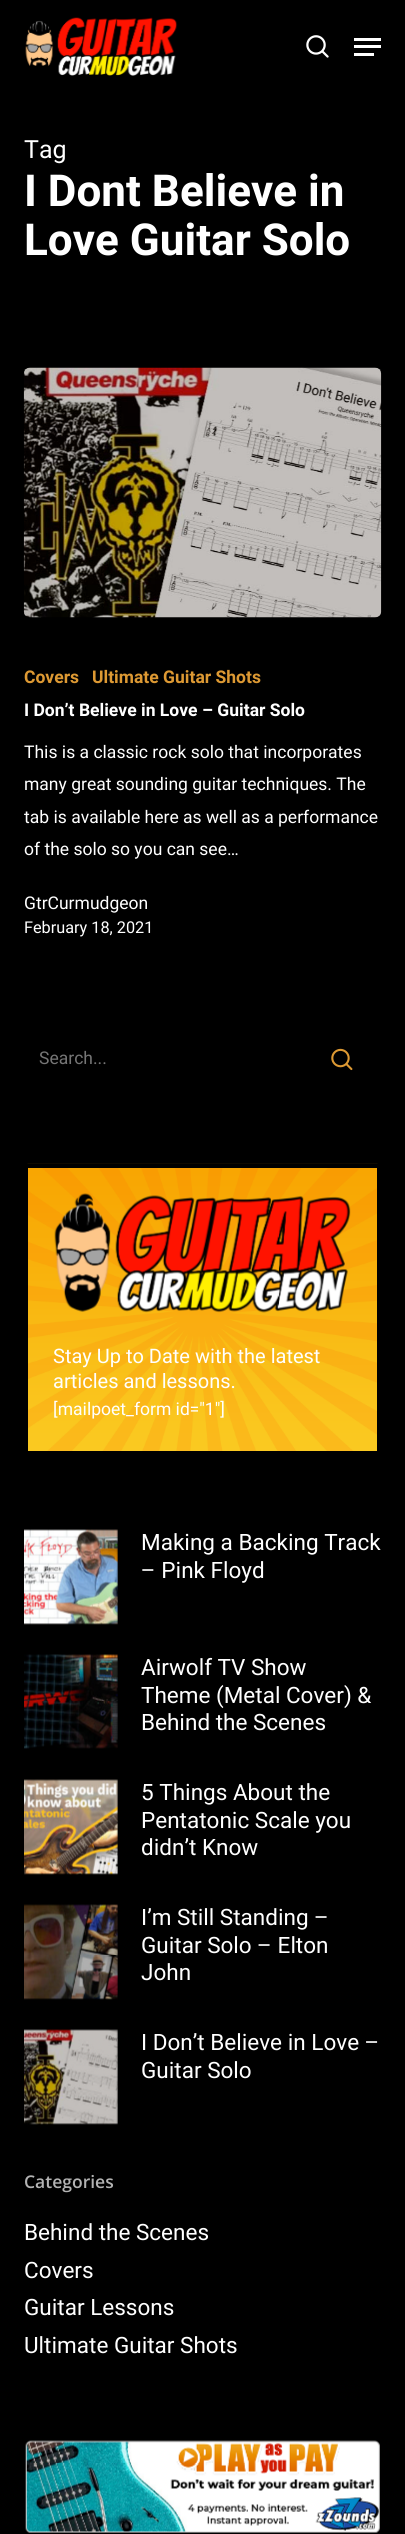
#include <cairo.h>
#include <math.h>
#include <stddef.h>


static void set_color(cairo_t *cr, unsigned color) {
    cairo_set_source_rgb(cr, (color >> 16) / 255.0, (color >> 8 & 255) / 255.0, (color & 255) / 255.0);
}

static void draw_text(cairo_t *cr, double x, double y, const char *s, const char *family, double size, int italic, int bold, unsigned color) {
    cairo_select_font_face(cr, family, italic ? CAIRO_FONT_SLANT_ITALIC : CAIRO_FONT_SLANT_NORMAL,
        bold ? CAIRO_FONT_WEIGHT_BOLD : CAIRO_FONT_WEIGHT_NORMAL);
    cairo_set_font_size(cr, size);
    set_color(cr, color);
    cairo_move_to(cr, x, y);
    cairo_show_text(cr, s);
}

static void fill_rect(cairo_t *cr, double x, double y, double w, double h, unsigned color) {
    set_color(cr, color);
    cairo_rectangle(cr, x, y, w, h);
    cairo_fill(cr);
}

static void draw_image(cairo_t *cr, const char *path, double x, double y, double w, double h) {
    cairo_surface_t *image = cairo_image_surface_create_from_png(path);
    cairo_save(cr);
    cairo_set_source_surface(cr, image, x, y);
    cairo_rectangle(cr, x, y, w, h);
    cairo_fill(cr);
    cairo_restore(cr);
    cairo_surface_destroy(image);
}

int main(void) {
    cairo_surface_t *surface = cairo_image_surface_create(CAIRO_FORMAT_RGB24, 405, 2534);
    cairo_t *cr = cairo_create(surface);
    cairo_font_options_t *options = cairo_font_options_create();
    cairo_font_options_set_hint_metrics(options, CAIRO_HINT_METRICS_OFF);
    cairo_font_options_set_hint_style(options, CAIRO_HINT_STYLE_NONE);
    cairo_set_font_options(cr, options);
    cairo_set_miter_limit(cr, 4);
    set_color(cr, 0x000000);
    cairo_paint(cr);
    draw_image(cr, "assets/img1.png", 25, 17, 153, 59);
    draw_image(cr, "assets/img2.png", 306, 35, 23, 23);
    fill_rect(cr, 354, 38, 27, 3, 0xFFFFFF);
    fill_rect(cr, 354, 53, 20, 3, 0xFFFFFF);
    fill_rect(cr, 354, 45, 27, 3, 0xFFFFFF);
    draw_text(cr, 24, 158, "Tag", "Heebo", 25, 0, 0, 0xFFFFFF);
    draw_text(cr, 24, 206, "I Dont Believe in", "Heebo", 44, 0, 1, 0xFFFFFF);
    draw_text(cr, 24, 255, "Love Guitar Solo", "Heebo", 44, 0, 1, 0xFFFFFF);
    draw_image(cr, "assets/img3.png", 23, 367, 359, 251);
    draw_text(cr, 24, 683, "Covers", "Heebo", 17.5, 0, 1, 0xDD9933);
    draw_text(cr, 92, 683, "Ultimate Guitar Shots", "Heebo", 17.5, 0, 1, 0xDD9933);
    draw_text(cr, 24, 716, "I Don’t Believe in Love – Guitar Solo", "Heebo", 17.5, 0, 1, 0xFFFFFF);
    draw_text(cr, 24, 758, "This is a classic rock solo that incorporates", "Heebo", 17.5, 0, 0, 0xFFFFFF);
    draw_text(cr, 24, 790, "many great sounding guitar techniques. The", "Heebo", 17.5, 0, 0, 0xFFFFFF);
    draw_text(cr, 24, 823, "tab is available here as well as a performance", "Heebo", 17.5, 0, 0, 0xFFFFFF);
    draw_text(cr, 24, 855, "of the solo so you can see…", "Heebo", 17.5, 0, 0, 0xFFFFFF);
    draw_text(cr, 24, 909, "GtrCurmudgeon", "Heebo", 17.5, 0, 0, 0xFFFFFF);
    draw_text(cr, 24, 933, "February 18, 2021", "Heebo", 16.25, 0, 0, 0xFFFFFF);
    draw_text(cr, 39, 1064, "Search...", "Heebo", 17.5, 0, 0, 0x757575);
    draw_image(cr, "assets/img4.png", 331, 1048, 22, 23);
    draw_image(cr, "assets/img5.png", 27, 1163, 351, 288);
    cairo_rectangle(cr, 26, 1166, 353, 287);
    set_color(cr, 0x000000);
    cairo_set_line_width(cr, 4);
    cairo_stroke(cr);
    draw_image(cr, "assets/img6.png", 54, 1193, 297, 120);
    draw_text(cr, 53, 1363, "Stay Up to Date with the latest", "Heebo", 20, 0, 0, 0xFFFFFF);
    draw_text(cr, 53, 1388, "articles and lessons.", "Heebo", 20, 0, 0, 0xFFFFFF);
    draw_text(cr, 53, 1415, "[mailpoet_form id=\"1\"]", "Heebo", 17.5, 0, 0, 0xFFFFFF);
    draw_image(cr, "assets/img7.png", 24, 1529, 94, 96);
    draw_text(cr, 141, 1550, "Making a Backing Track", "Heebo", 22.5, 0, 0, 0xFFFFFF);
    draw_text(cr, 141, 1578, "– Pink Floyd", "Heebo", 22.5, 0, 0, 0xFFFFFF);
    draw_image(cr, "assets/img8.png", 24, 1654, 94, 95);
    draw_text(cr, 141, 1675, "Airwolf TV Show", "Heebo", 22.5, 0, 0, 0xFFFFFF);
    draw_text(cr, 141, 1703, "Theme (Metal Cover) &", "Heebo", 22.5, 0, 0, 0xFFFFFF);
    draw_text(cr, 141, 1730, "Behind the Scenes", "Heebo", 22.5, 0, 0, 0xFFFFFF);
    draw_image(cr, "assets/img9.png", 24, 1779, 94, 96);
    draw_text(cr, 141, 1800, "5 Things About the", "Heebo", 22.5, 0, 0, 0xFFFFFF);
    draw_text(cr, 141, 1828, "Pentatonic Scale you", "Heebo", 22.5, 0, 0, 0xFFFFFF);
    draw_text(cr, 141, 1855, "didn’t Know", "Heebo", 22.5, 0, 0, 0xFFFFFF);
    draw_image(cr, "assets/img10.png", 24, 1904, 94, 96);
    draw_text(cr, 141, 1925, "I’m Still Standing –", "Heebo", 22.5, 0, 0, 0xFFFFFF);
    draw_text(cr, 141, 1953, "Guitar Solo – Elton", "Heebo", 22.5, 0, 0, 0xFFFFFF);
    draw_text(cr, 141, 1980, "John", "Heebo", 22.5, 0, 0, 0xFFFFFF);
    draw_image(cr, "assets/img11.png", 24, 2029, 94, 96);
    draw_text(cr, 141, 2050, "I Don’t Believe in Love –", "Heebo", 22.5, 0, 0, 0xFFFFFF);
    draw_text(cr, 141, 2078, "Guitar Solo", "Heebo", 22.5, 0, 0, 0xFFFFFF);
    draw_text(cr, 24, 2188, "Categories", "Open Sans SemiBold", 17.5, 0, 0, 0xB3B3B3);
    draw_text(cr, 24, 2240, "Behind the Scenes", "Heebo", 22.5, 0, 0, 0xFFFFFF);
    draw_text(cr, 24, 2278, "Covers", "Heebo", 22.5, 0, 0, 0xFFFFFF);
    draw_text(cr, 24, 2315, "Guitar Lessons", "Heebo", 22.5, 0, 0, 0xFFFFFF);
    draw_text(cr, 24, 2353, "Ultimate Guitar Shots", "Heebo", 22.5, 0, 0, 0xFFFFFF);
    draw_image(cr, "assets/img12.png", 25, 2440, 355, 93);
    cairo_surface_write_to_png(surface, "output.png");
    cairo_font_options_destroy(options);
    cairo_destroy(cr);
    cairo_surface_destroy(surface);
    return 0;
}
